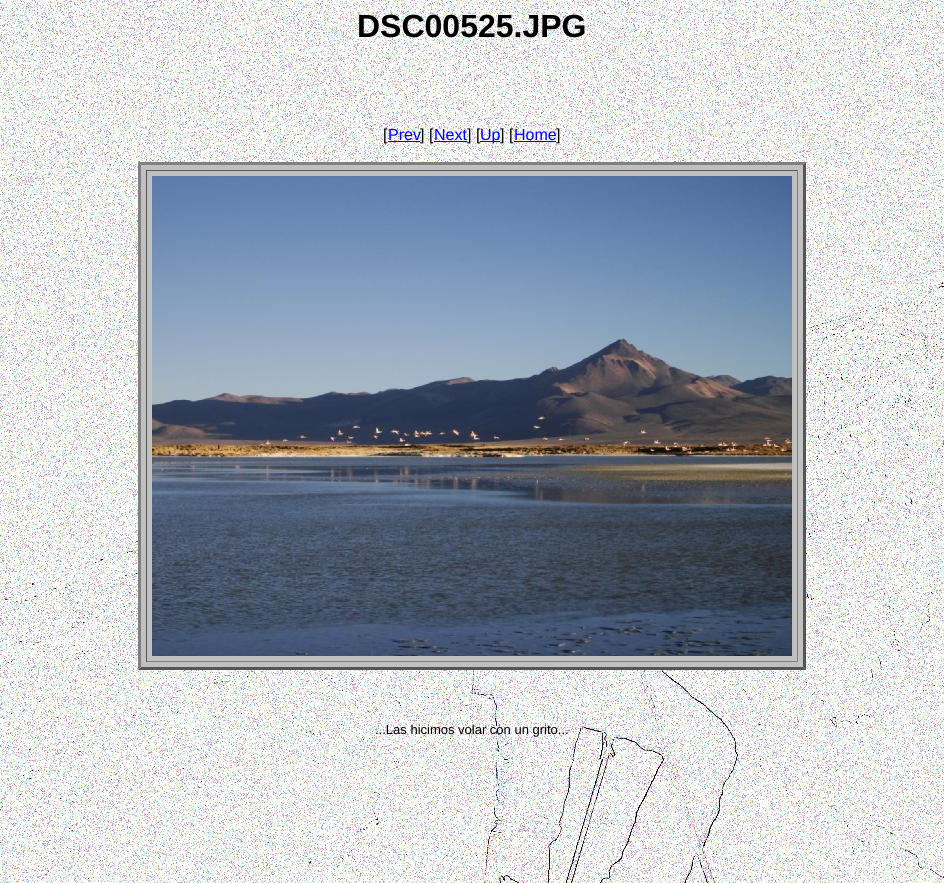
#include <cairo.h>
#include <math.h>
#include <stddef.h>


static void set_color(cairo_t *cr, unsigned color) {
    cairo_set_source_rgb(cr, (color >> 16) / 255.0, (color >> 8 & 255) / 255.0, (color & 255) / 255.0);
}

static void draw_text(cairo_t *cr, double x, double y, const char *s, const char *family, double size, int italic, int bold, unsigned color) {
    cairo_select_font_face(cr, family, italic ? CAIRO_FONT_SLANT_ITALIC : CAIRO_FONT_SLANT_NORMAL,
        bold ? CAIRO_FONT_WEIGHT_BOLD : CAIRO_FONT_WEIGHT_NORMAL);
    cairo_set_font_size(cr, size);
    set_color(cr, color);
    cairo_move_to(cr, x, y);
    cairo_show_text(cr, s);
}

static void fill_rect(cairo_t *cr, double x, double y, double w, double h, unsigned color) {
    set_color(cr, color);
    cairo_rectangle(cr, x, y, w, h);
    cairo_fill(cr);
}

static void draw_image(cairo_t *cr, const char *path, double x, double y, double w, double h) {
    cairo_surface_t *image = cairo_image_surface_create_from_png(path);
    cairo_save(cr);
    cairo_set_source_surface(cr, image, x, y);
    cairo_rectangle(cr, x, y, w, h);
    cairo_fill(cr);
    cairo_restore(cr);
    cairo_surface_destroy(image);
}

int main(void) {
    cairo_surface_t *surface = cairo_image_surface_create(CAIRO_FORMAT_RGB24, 944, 883);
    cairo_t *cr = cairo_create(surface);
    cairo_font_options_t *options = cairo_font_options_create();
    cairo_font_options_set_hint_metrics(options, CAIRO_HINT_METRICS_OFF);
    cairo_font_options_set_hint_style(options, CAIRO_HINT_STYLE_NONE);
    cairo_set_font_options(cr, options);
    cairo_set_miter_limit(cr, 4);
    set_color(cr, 0xFFFFFF);
    cairo_paint(cr);
    draw_image(cr, "assets/img1.png", 0, 0, 944, 883);
    draw_text(cr, 357, 37, "DSC00525.JPG", "Liberation Sans", 32, 0, 1, 0x000000);
    draw_text(cr, 383, 140, "[", "Liberation Sans", 16, 0, 0, 0x000000);
    draw_text(cr, 388, 140, "Prev", "Liberation Sans", 16, 0, 0, 0x0000FF);
    fill_rect(cr, 388, 141, 32, 1, 0x0000FF);
    draw_text(cr, 420, 140, "] [", "Liberation Sans", 16, 0, 0, 0x000000);
    draw_text(cr, 434, 140, "Next", "Liberation Sans", 16, 0, 0, 0x0000FF);
    fill_rect(cr, 434, 141, 33, 1, 0x0000FF);
    draw_text(cr, 467, 140, "] [", "Liberation Sans", 16, 0, 0, 0x000000);
    fill_rect(cr, 480, 141, 20, 1, 0x0000FF);
    draw_text(cr, 480, 140, "Up", "Liberation Sans", 16, 0, 0, 0x0000FF);
    draw_text(cr, 500, 140, "] [", "Liberation Sans", 16, 0, 0, 0x000000);
    draw_text(cr, 514, 140, "Home", "Liberation Sans", 16, 0, 0, 0x0000FF);
    fill_rect(cr, 514, 141, 42, 1, 0x0000FF);
    draw_text(cr, 556, 140, "]", "Liberation Sans", 16, 0, 0, 0x000000);
    fill_rect(cr, 138, 162, 668, 508, 0xC0C0C0);
    set_color(cr, 0x808080);
    cairo_new_path(cr);
    cairo_move_to(cr, 138, 162);
    cairo_line_to(cr, 806, 162);
    cairo_line_to(cr, 803, 165);
    cairo_line_to(cr, 141, 165);
    cairo_close_path(cr);
    cairo_fill(cr);
    set_color(cr, 0x555555);
    cairo_new_path(cr);
    cairo_move_to(cr, 806, 162);
    cairo_line_to(cr, 806, 670);
    cairo_line_to(cr, 803, 667);
    cairo_line_to(cr, 803, 165);
    cairo_close_path(cr);
    cairo_fill(cr);
    cairo_new_path(cr);
    cairo_move_to(cr, 806, 670);
    cairo_line_to(cr, 138, 670);
    cairo_line_to(cr, 141, 667);
    cairo_line_to(cr, 803, 667);
    cairo_close_path(cr);
    cairo_fill(cr);
    set_color(cr, 0x808080);
    cairo_new_path(cr);
    cairo_move_to(cr, 138, 670);
    cairo_line_to(cr, 138, 162);
    cairo_line_to(cr, 141, 165);
    cairo_line_to(cr, 141, 667);
    cairo_close_path(cr);
    cairo_fill(cr);
    fill_rect(cr, 146, 170, 652, 1, 0x555555);
    fill_rect(cr, 797, 170, 1, 492, 0x808080);
    fill_rect(cr, 146, 661, 652, 1, 0x808080);
    fill_rect(cr, 146, 170, 1, 492, 0x555555);
    draw_image(cr, "assets/img2.png", 152, 176, 640, 480);
    draw_text(cr, 375, 734, "...Las hicimos volar con un grito...", "Liberation Sans", 13, 0, 0, 0x000000);
    cairo_surface_write_to_png(surface, "output.png");
    cairo_font_options_destroy(options);
    cairo_destroy(cr);
    cairo_surface_destroy(surface);
    return 0;
}
